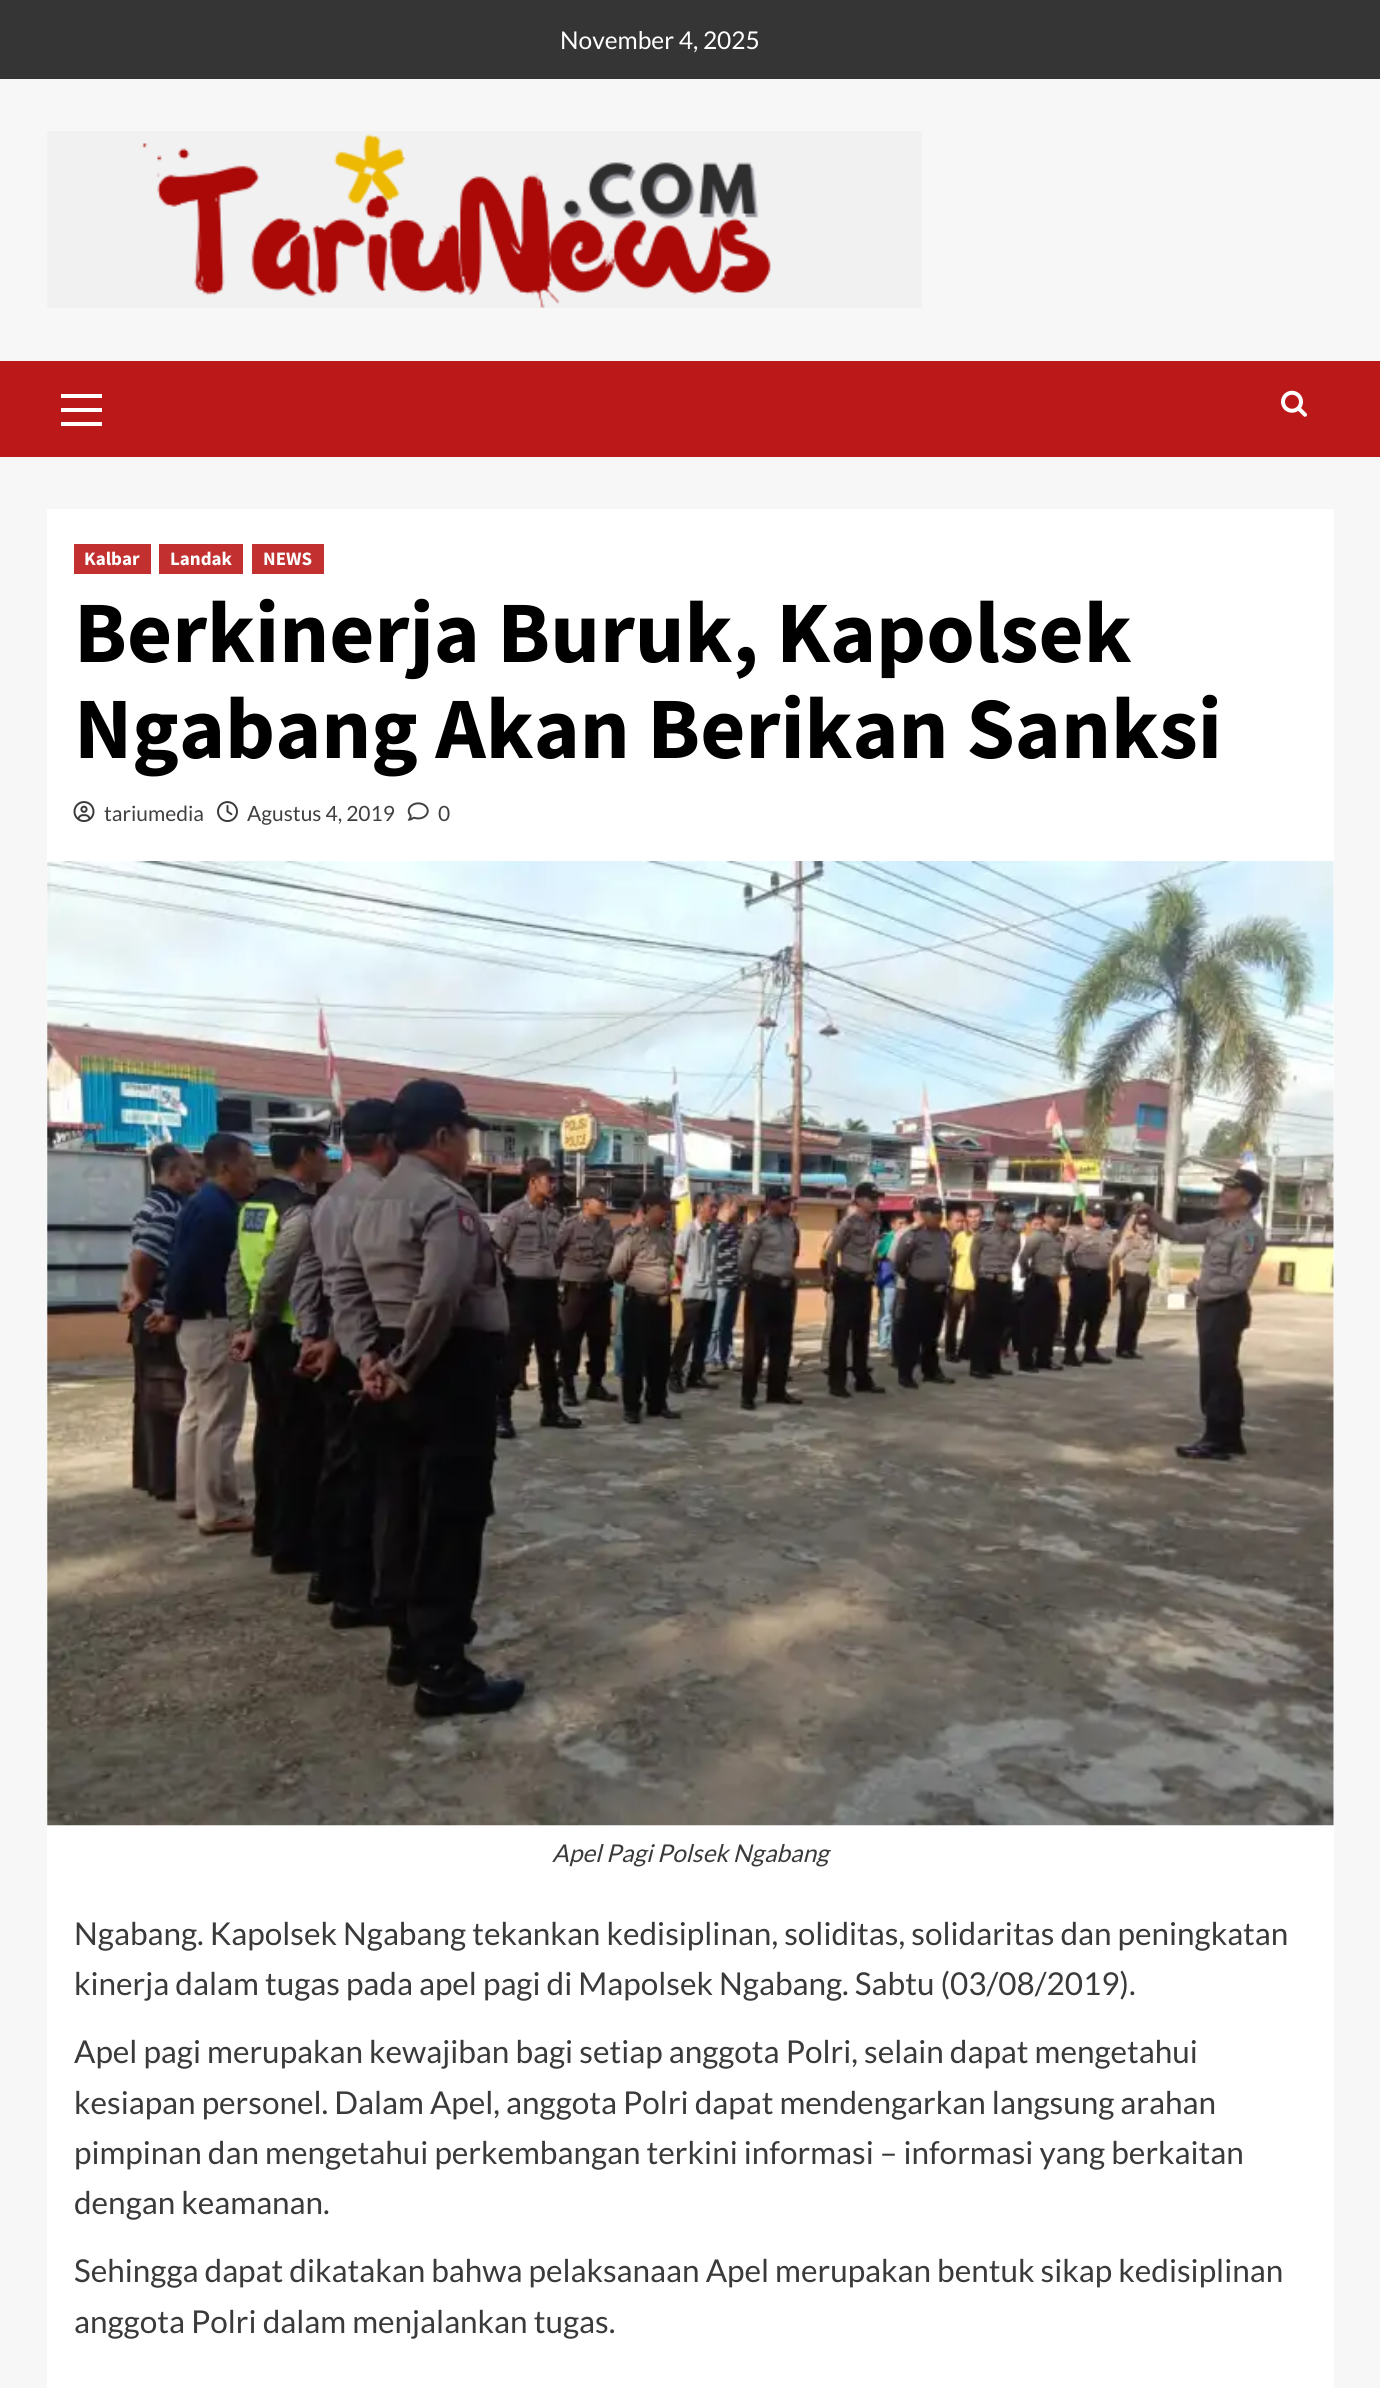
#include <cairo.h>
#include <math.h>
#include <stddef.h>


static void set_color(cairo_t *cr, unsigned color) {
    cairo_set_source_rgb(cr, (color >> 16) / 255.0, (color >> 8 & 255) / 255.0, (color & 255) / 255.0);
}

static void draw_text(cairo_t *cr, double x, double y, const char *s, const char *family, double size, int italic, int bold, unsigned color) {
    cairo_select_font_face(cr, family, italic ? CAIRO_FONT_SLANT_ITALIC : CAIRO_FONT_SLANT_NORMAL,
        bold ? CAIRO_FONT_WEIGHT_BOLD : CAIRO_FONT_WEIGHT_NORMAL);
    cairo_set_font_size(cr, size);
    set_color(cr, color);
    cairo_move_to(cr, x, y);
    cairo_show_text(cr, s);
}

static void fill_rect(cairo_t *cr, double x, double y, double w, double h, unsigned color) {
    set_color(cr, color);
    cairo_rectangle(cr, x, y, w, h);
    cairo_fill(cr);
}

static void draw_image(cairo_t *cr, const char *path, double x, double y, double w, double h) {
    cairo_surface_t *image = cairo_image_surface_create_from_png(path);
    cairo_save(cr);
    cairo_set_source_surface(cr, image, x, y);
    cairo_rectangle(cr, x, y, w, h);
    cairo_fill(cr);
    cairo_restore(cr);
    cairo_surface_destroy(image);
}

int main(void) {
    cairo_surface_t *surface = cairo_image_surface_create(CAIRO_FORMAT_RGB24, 1380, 2388);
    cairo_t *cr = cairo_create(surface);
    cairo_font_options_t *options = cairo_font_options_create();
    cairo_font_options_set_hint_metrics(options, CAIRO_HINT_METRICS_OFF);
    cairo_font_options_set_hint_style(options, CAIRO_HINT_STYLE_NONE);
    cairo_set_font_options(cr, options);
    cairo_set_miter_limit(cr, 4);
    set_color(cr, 0xF7F7F7);
    cairo_paint(cr);
    fill_rect(cr, 0, 0, 1380, 79, 0x353535);
    draw_text(cr, 560, 49, "November 4, 2025", "Lato", 24.5, 0, 0, 0xFFFFFF);
    draw_image(cr, "assets/img1.png", 47, 131, 875, 177);
    fill_rect(cr, 0, 361, 1380, 96, 0xBB1919);
    fill_rect(cr, 61, 408, 41, 4, 0xFFFFFF);
    fill_rect(cr, 61, 394, 41, 4, 0xFFFFFF);
    fill_rect(cr, 61, 422, 41, 4, 0xFFFFFF);
    draw_image(cr, "assets/img2.png", 1281, 390, 26, 27);
    fill_rect(cr, 47, 509, 1287, 1879, 0xFFFFFF);
    fill_rect(cr, 74, 544, 77, 30, 0xC23030);
    draw_text(cr, 84, 565, "Kalbar", "Source Sans Pro", 19, 0, 1, 0xFFFFFF);
    fill_rect(cr, 159, 544, 84, 30, 0xC23030);
    draw_text(cr, 170, 565, "Landak", "Source Sans Pro", 19, 0, 1, 0xFFFFFF);
    fill_rect(cr, 252, 544, 72, 30, 0xC23030);
    draw_text(cr, 263, 565, "NEWS", "Source Sans Pro", 19, 0, 1, 0xFFFFFF);
    draw_text(cr, 74, 662, "Berkinerja Buruk, Kapolsek", "Source Sans Pro", 87.5, 0, 1, 0x000000);
    draw_text(cr, 74, 758, "Ngabang Akan Berikan Sanksi", "Source Sans Pro", 87.5, 0, 1, 0x000000);
    draw_image(cr, "assets/img3.png", 73, 801, 22, 21);
    draw_text(cr, 104, 821, "tariumedia", "Lato", 21, 0, 0, 0x404040);
    draw_image(cr, "assets/img4.png", 217, 801, 21, 22);
    draw_text(cr, 247, 821, "Agustus 4, 2019", "Lato", 21, 0, 0, 0x404040);
    draw_image(cr, "assets/img5.png", 407, 802, 22, 19);
    draw_text(cr, 438, 821, "0", "Lato", 21, 0, 0, 0x404040);
    draw_image(cr, "assets/img6.png", 47, 861, 1287, 965);
    draw_text(cr, 552, 1862, "Apel Pagi Polsek Ngabang", "Lato", 24.5, 1, 0, 0x3A3A3A);
    draw_text(cr, 74, 1945, "Ngabang. Kapolsek Ngabang tekankan kedisiplinan, soliditas, solidaritas dan peningkatan", "Lato", 31.5, 0, 0, 0x3A3A3A);
    draw_text(cr, 74, 1995, "kinerja dalam tugas pada apel pagi di Mapolsek Ngabang. Sabtu (03/08/2019).", "Lato", 31.5, 0, 0, 0x3A3A3A);
    draw_text(cr, 74, 2063, "Apel pagi merupakan kewajiban bagi setiap anggota Polri, selain dapat mengetahui", "Lato", 31.5, 0, 0, 0x3A3A3A);
    draw_text(cr, 74, 2114, "kesiapan personel. Dalam Apel, anggota Polri dapat mendengarkan langsung arahan", "Lato", 31.5, 0, 0, 0x3A3A3A);
    draw_text(cr, 74, 2164, "pimpinan dan mengetahui perkembangan terkini informasi – informasi yang berkaitan", "Lato", 31.5, 0, 0, 0x3A3A3A);
    draw_text(cr, 74, 2214, "dengan keamanan.", "Lato", 31.5, 0, 0, 0x3A3A3A);
    draw_text(cr, 74, 2282, "Sehingga dapat dikatakan bahwa pelaksanaan Apel merupakan bentuk sikap kedisiplinan", "Lato", 31.5, 0, 0, 0x3A3A3A);
    draw_text(cr, 74, 2333, "anggota Polri dalam menjalankan tugas.", "Lato", 31.5, 0, 0, 0x3A3A3A);
    cairo_surface_write_to_png(surface, "output.png");
    cairo_font_options_destroy(options);
    cairo_destroy(cr);
    cairo_surface_destroy(surface);
    return 0;
}
